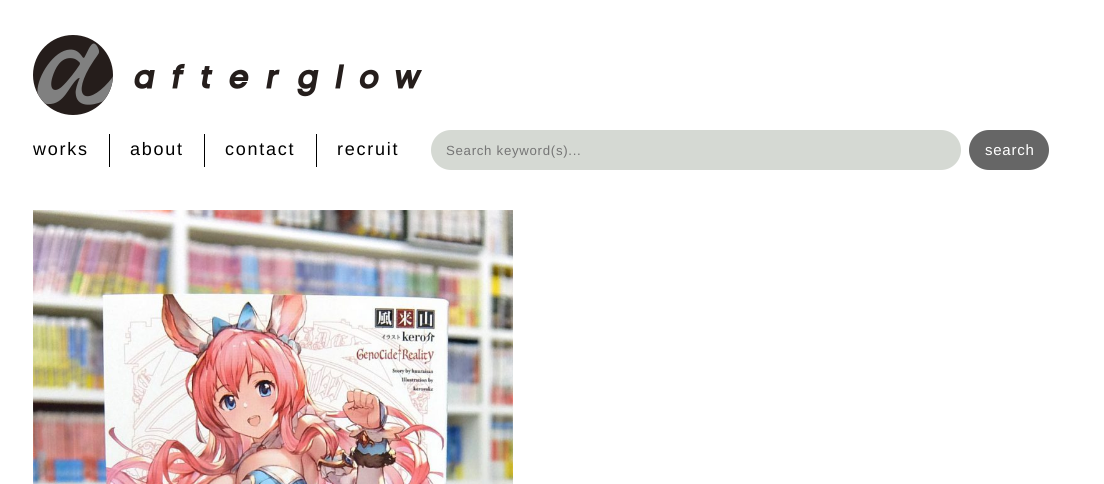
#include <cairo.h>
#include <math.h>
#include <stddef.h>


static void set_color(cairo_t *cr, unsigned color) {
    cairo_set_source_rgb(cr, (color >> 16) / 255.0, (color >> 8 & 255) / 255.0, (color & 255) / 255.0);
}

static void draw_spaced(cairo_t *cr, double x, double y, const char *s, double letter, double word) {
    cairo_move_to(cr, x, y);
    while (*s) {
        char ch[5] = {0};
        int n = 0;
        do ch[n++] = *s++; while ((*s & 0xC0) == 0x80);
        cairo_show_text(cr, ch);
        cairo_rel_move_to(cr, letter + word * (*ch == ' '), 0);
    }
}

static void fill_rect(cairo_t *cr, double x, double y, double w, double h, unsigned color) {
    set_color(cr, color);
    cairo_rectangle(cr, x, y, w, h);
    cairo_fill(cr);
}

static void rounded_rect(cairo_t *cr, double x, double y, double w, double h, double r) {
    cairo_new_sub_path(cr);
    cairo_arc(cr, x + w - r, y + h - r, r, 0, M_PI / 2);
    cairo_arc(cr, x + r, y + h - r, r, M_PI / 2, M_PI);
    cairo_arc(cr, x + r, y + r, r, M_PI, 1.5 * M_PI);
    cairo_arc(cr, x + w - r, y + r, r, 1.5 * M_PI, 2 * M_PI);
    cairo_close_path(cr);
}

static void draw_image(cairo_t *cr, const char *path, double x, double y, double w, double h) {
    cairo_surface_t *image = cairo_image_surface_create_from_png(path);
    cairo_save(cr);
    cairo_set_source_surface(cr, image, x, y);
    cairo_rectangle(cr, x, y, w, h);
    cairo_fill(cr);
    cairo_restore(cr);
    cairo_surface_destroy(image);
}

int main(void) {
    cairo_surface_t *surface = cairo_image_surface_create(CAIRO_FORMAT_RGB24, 1104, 484);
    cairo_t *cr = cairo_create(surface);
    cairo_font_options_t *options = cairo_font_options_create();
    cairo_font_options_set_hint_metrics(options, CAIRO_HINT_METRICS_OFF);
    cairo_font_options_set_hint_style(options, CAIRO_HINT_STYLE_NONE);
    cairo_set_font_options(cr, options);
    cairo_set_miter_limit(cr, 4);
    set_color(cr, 0xFFFFFF);
    cairo_paint(cr);
    draw_image(cr, "assets/img1.png", 33, 35, 389, 80);
    cairo_select_font_face(cr, "Liberation Sans", CAIRO_FONT_SLANT_NORMAL, CAIRO_FONT_WEIGHT_NORMAL);
    cairo_set_font_size(cr, 18);
    set_color(cr, 0x000000);
    draw_spaced(cr, 33, 155, "works", 1.75, 0);
    fill_rect(cr, 109, 134, 1, 33, 0x000000);
    draw_spaced(cr, 130, 155, "about", 1.75, 0);
    fill_rect(cr, 204, 134, 1, 33, 0x000000);
    draw_spaced(cr, 225, 155, "contact", 1.75, 0);
    fill_rect(cr, 316, 134, 1, 33, 0x000000);
    draw_spaced(cr, 337, 155, "recruit", 1.75, 0);
    set_color(cr, 0xD5D9D3);
    rounded_rect(cr, 431, 130, 530, 40, 20);
    cairo_fill(cr);
    cairo_set_font_size(cr, 13.25);
    set_color(cr, 0x757575);
    draw_spaced(cr, 446, 155, "Search keyword(s)...", 0.7, 0);
    set_color(cr, 0x666666);
    rounded_rect(cr, 969, 130, 80, 40, 20);
    cairo_fill(cr);
    cairo_set_font_size(cr, 15);
    set_color(cr, 0xFFFFFF);
    draw_spaced(cr, 985, 155, "search", 0.75, 0);
    draw_image(cr, "assets/img2.png", 33, 210, 480, 274);
    cairo_surface_write_to_png(surface, "output.png");
    cairo_font_options_destroy(options);
    cairo_destroy(cr);
    cairo_surface_destroy(surface);
    return 0;
}
